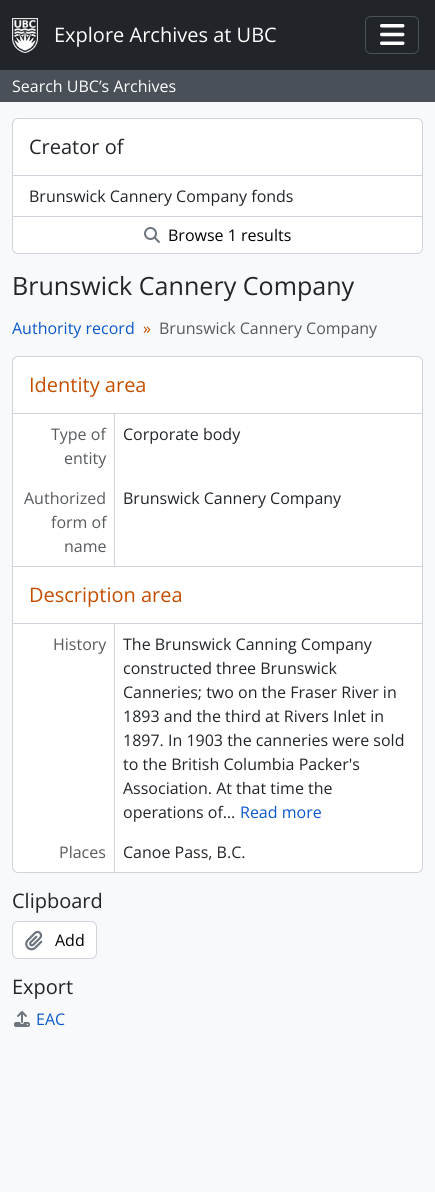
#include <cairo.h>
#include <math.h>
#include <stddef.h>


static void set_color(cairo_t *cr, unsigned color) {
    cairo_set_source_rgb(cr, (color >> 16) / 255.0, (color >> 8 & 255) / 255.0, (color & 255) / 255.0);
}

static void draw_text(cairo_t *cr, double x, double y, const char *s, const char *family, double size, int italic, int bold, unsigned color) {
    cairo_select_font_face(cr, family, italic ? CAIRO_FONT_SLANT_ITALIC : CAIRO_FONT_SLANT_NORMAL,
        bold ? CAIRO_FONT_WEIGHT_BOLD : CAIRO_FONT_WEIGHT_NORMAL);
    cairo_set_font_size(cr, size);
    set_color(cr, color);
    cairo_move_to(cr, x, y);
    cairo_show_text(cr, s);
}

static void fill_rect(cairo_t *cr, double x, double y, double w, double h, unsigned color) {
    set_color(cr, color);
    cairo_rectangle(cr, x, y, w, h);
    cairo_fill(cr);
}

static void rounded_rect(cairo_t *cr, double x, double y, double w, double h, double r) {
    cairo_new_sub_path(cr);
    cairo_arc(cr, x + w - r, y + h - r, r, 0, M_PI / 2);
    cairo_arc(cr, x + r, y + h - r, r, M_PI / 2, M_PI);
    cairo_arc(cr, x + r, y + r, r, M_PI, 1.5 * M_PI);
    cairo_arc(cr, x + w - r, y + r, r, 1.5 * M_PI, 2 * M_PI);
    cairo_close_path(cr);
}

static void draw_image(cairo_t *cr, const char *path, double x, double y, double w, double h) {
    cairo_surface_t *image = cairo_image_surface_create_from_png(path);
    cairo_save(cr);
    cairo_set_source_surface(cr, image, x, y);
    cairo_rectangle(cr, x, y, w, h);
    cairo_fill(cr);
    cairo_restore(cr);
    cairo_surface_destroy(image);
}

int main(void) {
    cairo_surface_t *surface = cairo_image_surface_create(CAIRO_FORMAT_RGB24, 435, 1192);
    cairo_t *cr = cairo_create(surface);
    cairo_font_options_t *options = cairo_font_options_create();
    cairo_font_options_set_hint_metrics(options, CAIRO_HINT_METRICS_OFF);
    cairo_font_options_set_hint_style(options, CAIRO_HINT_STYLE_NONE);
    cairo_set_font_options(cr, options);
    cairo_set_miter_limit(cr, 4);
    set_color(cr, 0xF8F9FA);
    cairo_paint(cr);
    fill_rect(cr, 0, 0, 435, 70, 0x212529);
    draw_image(cr, "assets/img1.png", 12, 18, 26, 35);
    draw_text(cr, 54, 42, "Explore Archives at UBC", "Open Sans", 20, 0, 0, 0xFFFFFF);
    rounded_rect(cr, 365.5, 16.5, 53, 37, 5.5);
    set_color(cr, 0x495057);
    cairo_set_line_width(cr, 1);
    cairo_stroke(cr);
    draw_image(cr, "assets/img2.png", 380, 24, 25, 21);
    fill_rect(cr, 0, 70, 435, 32, 0x495057);
    draw_text(cr, 12, 92, "Search UBC’s Archives", "Open Sans", 16, 0, 0, 0xFFFFFF);
    rounded_rect(cr, 12.5, 118.5, 410, 135, 5.5);
    cairo_fill_preserve(cr);
    set_color(cr, 0xCED4DA);
    cairo_stroke(cr);
    draw_text(cr, 29, 154, "Creator of", "Open Sans", 20, 0, 0, 0x212529);
    fill_rect(cr, 13, 175, 409, 1, 0xCED4DA);
    fill_rect(cr, 13, 216, 409, 1, 0xCED4DA);
    draw_text(cr, 29, 202, "Brunswick Cannery Company fonds", "Open Sans", 16, 0, 0, 0x212529);
    set_color(cr, 0xFFFFFF);
    rounded_rect(cr, 13, 217, 409, 36, 6);
    cairo_fill(cr);
    draw_image(cr, "assets/img3.png", 144, 227, 16, 16);
    draw_text(cr, 168, 241, "Browse 1 results", "Open Sans", 16, 0, 0, 0x000000);
    draw_text(cr, 12, 295, "Brunswick Cannery Company", "Open Sans", 25.1, 0, 0, 0x212529);
    draw_text(cr, 12, 334, "Authority record", "Open Sans", 16, 0, 0, 0x0A58CA);
    draw_text(cr, 143, 334, "»", "Open Sans", 16, 0, 0, 0xC44E00);
    draw_text(cr, 159, 334, "Brunswick Cannery Company", "Open Sans", 16, 0, 0, 0x575A5D);
    set_color(cr, 0xFFFFFF);
    rounded_rect(cr, 12.5, 356.5, 410, 516, 5.5);
    cairo_fill_preserve(cr);
    set_color(cr, 0xCED4DA);
    cairo_stroke(cr);
    fill_rect(cr, 13, 566, 409, 1, 0xCED4DA);
    fill_rect(cr, 13, 413, 409, 1, 0xCED4DA);
    draw_text(cr, 29, 392, "Identity area", "Open Sans", 20, 0, 0, 0xC44E00);
    fill_rect(cr, 114, 414, 1, 152, 0xCED4DA);
    draw_text(cr, 51, 440, "Type of", "Open Sans", 16, 0, 0, 0x575A5D);
    draw_text(cr, 64, 464, "entity", "Open Sans", 16, 0, 0, 0x575A5D);
    draw_text(cr, 123, 440, "Corporate body", "Open Sans", 16, 0, 0, 0x212529);
    draw_text(cr, 24, 504, "Authorized", "Open Sans", 16, 0, 0, 0x575A5D);
    draw_text(cr, 51, 528, "form of", "Open Sans", 16, 0, 0, 0x575A5D);
    draw_text(cr, 64, 552, "name", "Open Sans", 16, 0, 0, 0x575A5D);
    draw_text(cr, 123, 504, "Brunswick Cannery Company", "Open Sans", 16, 0, 0, 0x212529);
    fill_rect(cr, 13, 623, 409, 1, 0xCED4DA);
    draw_text(cr, 29, 602, "Description area", "Open Sans", 20, 0, 0, 0xC44E00);
    fill_rect(cr, 114, 624, 1, 248, 0xCED4DA);
    draw_text(cr, 53, 650, "History", "Open Sans", 16, 0, 0, 0x575A5D);
    draw_text(cr, 123, 650, "The Brunswick Canning Company", "Open Sans", 16, 0, 0, 0x212529);
    draw_text(cr, 123, 674, "constructed three Brunswick", "Open Sans", 16, 0, 0, 0x212529);
    draw_text(cr, 123, 698, "Canneries; two on the Fraser River in", "Open Sans", 16, 0, 0, 0x212529);
    draw_text(cr, 123, 722, "1893 and the third at Rivers Inlet in", "Open Sans", 16, 0, 0, 0x212529);
    draw_text(cr, 123, 746, "1897. In 1903 the canneries were sold", "Open Sans", 16, 0, 0, 0x212529);
    draw_text(cr, 123, 770, "to the British Columbia Packer's", "Open Sans", 16, 0, 0, 0x212529);
    draw_text(cr, 123, 794, "Association. At that time the", "Open Sans", 16, 0, 0, 0x212529);
    draw_text(cr, 123, 818, "operations of…", "Open Sans", 16, 0, 0, 0x212529);
    draw_text(cr, 240, 818, "Read more", "Open Sans", 16, 0, 0, 0x0A58CA);
    draw_text(cr, 59, 858, "Places", "Open Sans", 16, 0, 0, 0x575A5D);
    draw_text(cr, 123, 858, "Canoe Pass, B.C.", "Open Sans", 16, 0, 0, 0x212529);
    draw_text(cr, 12, 908, "Clipboard", "Open Sans", 20, 0, 0, 0x212529);
    set_color(cr, 0xFFFFFF);
    rounded_rect(cr, 12.5, 921.5, 84, 37, 5.5);
    cairo_fill_preserve(cr);
    set_color(cr, 0xCED4DA);
    cairo_stroke(cr);
    draw_image(cr, "assets/img4.png", 25, 930, 18, 21);
    draw_text(cr, 55, 946, "Add", "Open Sans", 16, 0, 0, 0x000000);
    draw_text(cr, 12, 994, "Export", "Open Sans", 20, 0, 0, 0x212529);
    draw_image(cr, "assets/img5.png", 14, 1011, 16, 16);
    draw_text(cr, 36, 1025, "EAC", "Open Sans", 16, 0, 0, 0x0A58CA);
    cairo_surface_write_to_png(surface, "output.png");
    cairo_font_options_destroy(options);
    cairo_destroy(cr);
    cairo_surface_destroy(surface);
    return 0;
}
